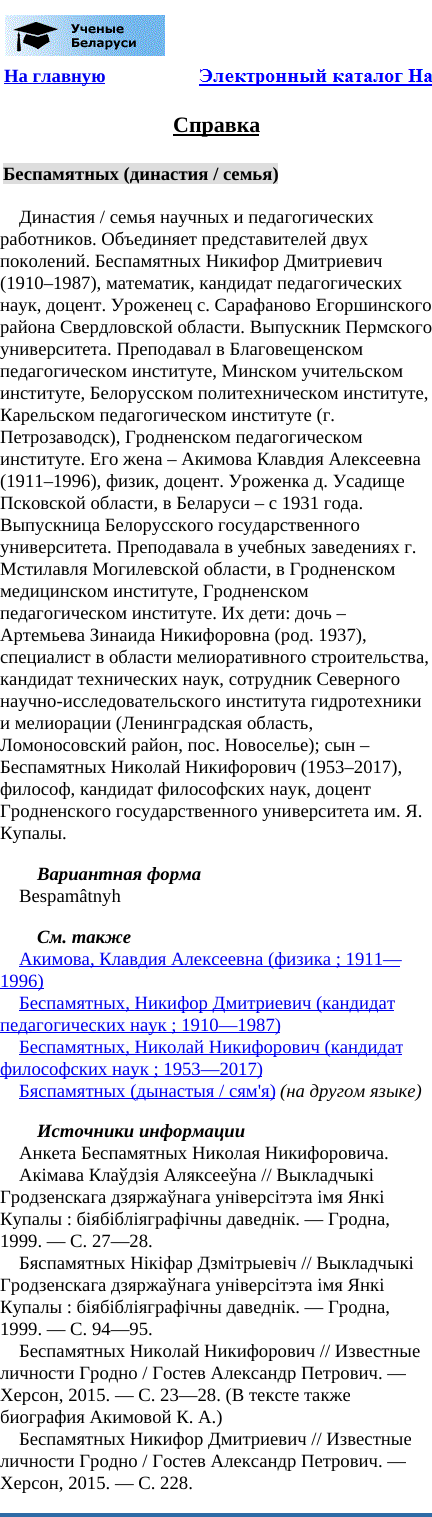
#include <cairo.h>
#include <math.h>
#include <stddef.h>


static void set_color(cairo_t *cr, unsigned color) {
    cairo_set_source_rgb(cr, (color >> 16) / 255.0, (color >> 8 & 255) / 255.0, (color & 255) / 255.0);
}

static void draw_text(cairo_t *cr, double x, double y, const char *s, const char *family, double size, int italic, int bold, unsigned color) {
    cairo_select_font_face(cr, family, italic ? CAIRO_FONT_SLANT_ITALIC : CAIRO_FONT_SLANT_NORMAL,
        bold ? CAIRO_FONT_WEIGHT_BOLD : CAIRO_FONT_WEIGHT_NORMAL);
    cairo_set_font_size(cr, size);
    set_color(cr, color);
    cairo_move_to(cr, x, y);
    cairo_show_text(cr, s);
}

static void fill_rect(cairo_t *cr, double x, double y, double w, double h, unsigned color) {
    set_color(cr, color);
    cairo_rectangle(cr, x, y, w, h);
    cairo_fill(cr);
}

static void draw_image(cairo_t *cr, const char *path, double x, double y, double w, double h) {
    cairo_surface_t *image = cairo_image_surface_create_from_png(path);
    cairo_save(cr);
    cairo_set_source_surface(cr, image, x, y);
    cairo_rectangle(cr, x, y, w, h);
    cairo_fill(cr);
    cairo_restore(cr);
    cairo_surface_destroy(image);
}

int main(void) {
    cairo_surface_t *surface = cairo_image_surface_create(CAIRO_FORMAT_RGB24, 432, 1517);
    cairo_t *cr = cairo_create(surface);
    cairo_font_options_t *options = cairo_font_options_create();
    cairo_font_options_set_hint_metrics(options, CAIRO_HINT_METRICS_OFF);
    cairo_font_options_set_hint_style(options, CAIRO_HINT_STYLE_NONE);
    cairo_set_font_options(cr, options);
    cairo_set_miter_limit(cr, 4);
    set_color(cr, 0xFFFFFF);
    cairo_paint(cr);
    draw_image(cr, "assets/img1.png", 5, 15, 160, 41);
    fill_rect(cr, 4, 83, 101, 1, 0x0000EE);
    draw_text(cr, 4, 82, "На главную", "Liberation Serif", 18.7, 0, 1, 0x0000EE);
    draw_image(cr, "assets/img2.png", 199, 69, 233, 17);
    fill_rect(cr, 173, 134, 86, 2, 0x000000);
    draw_text(cr, 173, 132, "Справка", "Liberation Serif", 22, 0, 1, 0x000000);
    fill_rect(cr, 3, 163, 275, 21, 0xDDDDDD);
    draw_text(cr, 3, 180, "Беспамятных (династия / семья)", "Liberation Serif", 18.7, 0, 1, 0x000000);
    draw_text(cr, 19, 223, "Династия / семья научных и педагогических", "Liberation Serif", 18.7, 0, 0, 0x000000);
    draw_text(cr, 0, 245, "работников. Объединяет представителей двух", "Liberation Serif", 18.7, 0, 0, 0x000000);
    draw_text(cr, 0, 267, "поколений. Беспамятных Никифор Дмитриевич", "Liberation Serif", 18.7, 0, 0, 0x000000);
    draw_text(cr, 0, 289, "(1910–1987), математик, кандидат педагогических", "Liberation Serif", 18.7, 0, 0, 0x000000);
    draw_text(cr, 0, 311, "наук, доцент. Уроженец с. Сарафаново Егоршинского", "Liberation Serif", 18.7, 0, 0, 0x000000);
    draw_text(cr, 0, 333, "района Свердловской области. Выпускник Пермского", "Liberation Serif", 18.7, 0, 0, 0x000000);
    draw_text(cr, 0, 355, "университета. Преподавал в Благовещенском", "Liberation Serif", 18.7, 0, 0, 0x000000);
    draw_text(cr, 0, 377, "педагогическом институте, Минском учительском", "Liberation Serif", 18.7, 0, 0, 0x000000);
    draw_text(cr, 0, 399, "институте, Белорусском политехническом институте,", "Liberation Serif", 18.7, 0, 0, 0x000000);
    draw_text(cr, 0, 421, "Карельском педагогическом институте (г.", "Liberation Serif", 18.7, 0, 0, 0x000000);
    draw_text(cr, 0, 443, "Петрозаводск), Гродненском педагогическом", "Liberation Serif", 18.7, 0, 0, 0x000000);
    draw_text(cr, 0, 465, "институте. Его жена – Акимова Клавдия Алексеевна", "Liberation Serif", 18.7, 0, 0, 0x000000);
    draw_text(cr, 0, 487, "(1911–1996), физик, доцент. Уроженка д. Усадище", "Liberation Serif", 18.7, 0, 0, 0x000000);
    draw_text(cr, 0, 509, "Псковской области, в Беларуси – с 1931 года.", "Liberation Serif", 18.7, 0, 0, 0x000000);
    draw_text(cr, 0, 531, "Выпускница Белорусского государственного", "Liberation Serif", 18.7, 0, 0, 0x000000);
    draw_text(cr, 0, 553, "университета. Преподавала в учебных заведениях г.", "Liberation Serif", 18.7, 0, 0, 0x000000);
    draw_text(cr, 0, 575, "Мстилавля Могилевской области, в Гродненском", "Liberation Serif", 18.7, 0, 0, 0x000000);
    draw_text(cr, 0, 597, "медицинском институте, Гродненском", "Liberation Serif", 18.7, 0, 0, 0x000000);
    draw_text(cr, 0, 619, "педагогическом институте. Их дети: дочь –", "Liberation Serif", 18.7, 0, 0, 0x000000);
    draw_text(cr, 0, 641, "Артемьева Зинаида Никифоровна (род. 1937),", "Liberation Serif", 18.7, 0, 0, 0x000000);
    draw_text(cr, 0, 663, "специалист в области мелиоративного строительства,", "Liberation Serif", 18.7, 0, 0, 0x000000);
    draw_text(cr, 0, 685, "кандидат технических наук, сотрудник Северного", "Liberation Serif", 18.7, 0, 0, 0x000000);
    draw_text(cr, 0, 707, "научно-исследовательского института гидротехники", "Liberation Serif", 18.7, 0, 0, 0x000000);
    draw_text(cr, 0, 729, "и мелиорации (Ленинградская область,", "Liberation Serif", 18.7, 0, 0, 0x000000);
    draw_text(cr, 0, 751, "Ломоносовский район, пос. Новоселье); сын –", "Liberation Serif", 18.7, 0, 0, 0x000000);
    draw_text(cr, 0, 773, "Беспамятных Николай Никифорович (1953–2017),", "Liberation Serif", 18.7, 0, 0, 0x000000);
    draw_text(cr, 0, 795, "философ, кандидат философских наук, доцент", "Liberation Serif", 18.7, 0, 0, 0x000000);
    draw_text(cr, 0, 817, "Гродненского государственного университета им. Я.", "Liberation Serif", 18.7, 0, 0, 0x000000);
    draw_text(cr, 0, 839, "Купалы.", "Liberation Serif", 18.7, 0, 0, 0x000000);
    draw_text(cr, 37, 880, "Вариантная форма", "Liberation Serif", 18.7, 1, 1, 0x000000);
    draw_text(cr, 19, 902, "Bespamâtnyh", "Liberation Serif", 18.7, 0, 0, 0x000000);
    draw_text(cr, 37, 943, "См. также", "Liberation Serif", 18.7, 1, 1, 0x000000);
    fill_rect(cr, 19, 966, 381, 1, 0x0000EE);
    draw_text(cr, 19, 965, "Акимова, Клавдия Алексеевна (физика ; 1911—", "Liberation Serif", 18.7, 0, 0, 0x0000EE);
    fill_rect(cr, 0, 988, 44, 1, 0x0000EE);
    draw_text(cr, 0, 987, "1996)", "Liberation Serif", 18.7, 0, 0, 0x0000EE);
    fill_rect(cr, 19, 1010, 375, 1, 0x0000EE);
    draw_text(cr, 19, 1009, "Беспамятных, Никифор Дмитриевич (кандидат", "Liberation Serif", 18.7, 0, 0, 0x0000EE);
    fill_rect(cr, 0, 1032, 280, 1, 0x0000EE);
    draw_text(cr, 0, 1031, "педагогических наук ; 1910—1987)", "Liberation Serif", 18.7, 0, 0, 0x0000EE);
    fill_rect(cr, 19, 1054, 383, 1, 0x0000EE);
    draw_text(cr, 19, 1053, "Беспамятных, Николай Никифорович (кандидат", "Liberation Serif", 18.7, 0, 0, 0x0000EE);
    fill_rect(cr, 0, 1076, 262, 1, 0x0000EE);
    draw_text(cr, 0, 1075, "философских наук ; 1953—2017)", "Liberation Serif", 18.7, 0, 0, 0x0000EE);
    fill_rect(cr, 19, 1098, 256, 1, 0x0000EE);
    draw_text(cr, 19, 1097, "Бяспамятных (дынастыя / сям'я)", "Liberation Serif", 18.7, 0, 0, 0x0000EE);
    draw_text(cr, 280, 1097, "(на другом языке)", "Liberation Serif", 18.7, 1, 0, 0x000000);
    draw_text(cr, 37, 1137, "Источники информации", "Liberation Serif", 18.7, 1, 1, 0x000000);
    draw_text(cr, 19, 1159, "Анкета Беспамятных Николая Никифоровича.", "Liberation Serif", 18.7, 0, 0, 0x000000);
    draw_text(cr, 19, 1181, "Акімава Клаўдзія Аляксееўна // Выкладчыкі", "Liberation Serif", 18.7, 0, 0, 0x000000);
    draw_text(cr, 0, 1203, "Гродзенскага дзяржаўнага універсітэта імя Янкі", "Liberation Serif", 18.7, 0, 0, 0x000000);
    draw_text(cr, 0, 1225, "Купалы : біябібліяграфічны даведнік. — Гродна,", "Liberation Serif", 18.7, 0, 0, 0x000000);
    draw_text(cr, 0, 1247, "1999. — С. 27—28.", "Liberation Serif", 18.7, 0, 0, 0x000000);
    draw_text(cr, 19, 1269, "Бяспамятных Нікіфар Дзмітрыевіч // Выкладчыкі", "Liberation Serif", 18.7, 0, 0, 0x000000);
    draw_text(cr, 0, 1291, "Гродзенскага дзяржаўнага універсітэта імя Янкі", "Liberation Serif", 18.7, 0, 0, 0x000000);
    draw_text(cr, 0, 1313, "Купалы : біябібліяграфічны даведнік. — Гродна,", "Liberation Serif", 18.7, 0, 0, 0x000000);
    draw_text(cr, 0, 1335, "1999. — С. 94—95.", "Liberation Serif", 18.7, 0, 0, 0x000000);
    draw_text(cr, 19, 1357, "Беспамятных Николай Никифорович // Известные", "Liberation Serif", 18.7, 0, 0, 0x000000);
    draw_text(cr, 0, 1379, "личности Гродно / Гостев Александр Петрович. —", "Liberation Serif", 18.7, 0, 0, 0x000000);
    draw_text(cr, 0, 1401, "Херсон, 2015. — С. 23—28. (В тексте также", "Liberation Serif", 18.7, 0, 0, 0x000000);
    draw_text(cr, 0, 1423, "биография Акимовой К. А.)", "Liberation Serif", 18.7, 0, 0, 0x000000);
    draw_text(cr, 19, 1445, "Беспамятных Никифор Дмитриевич // Известные", "Liberation Serif", 18.7, 0, 0, 0x000000);
    draw_text(cr, 0, 1467, "личности Гродно / Гостев Александр Петрович. —", "Liberation Serif", 18.7, 0, 0, 0x000000);
    draw_text(cr, 0, 1489, "Херсон, 2015. — С. 228.", "Liberation Serif", 18.7, 0, 0, 0x000000);
    fill_rect(cr, 0, 1513, 432, 4, 0x2E6BA6);
    cairo_surface_write_to_png(surface, "output.png");
    cairo_font_options_destroy(options);
    cairo_destroy(cr);
    cairo_surface_destroy(surface);
    return 0;
}
